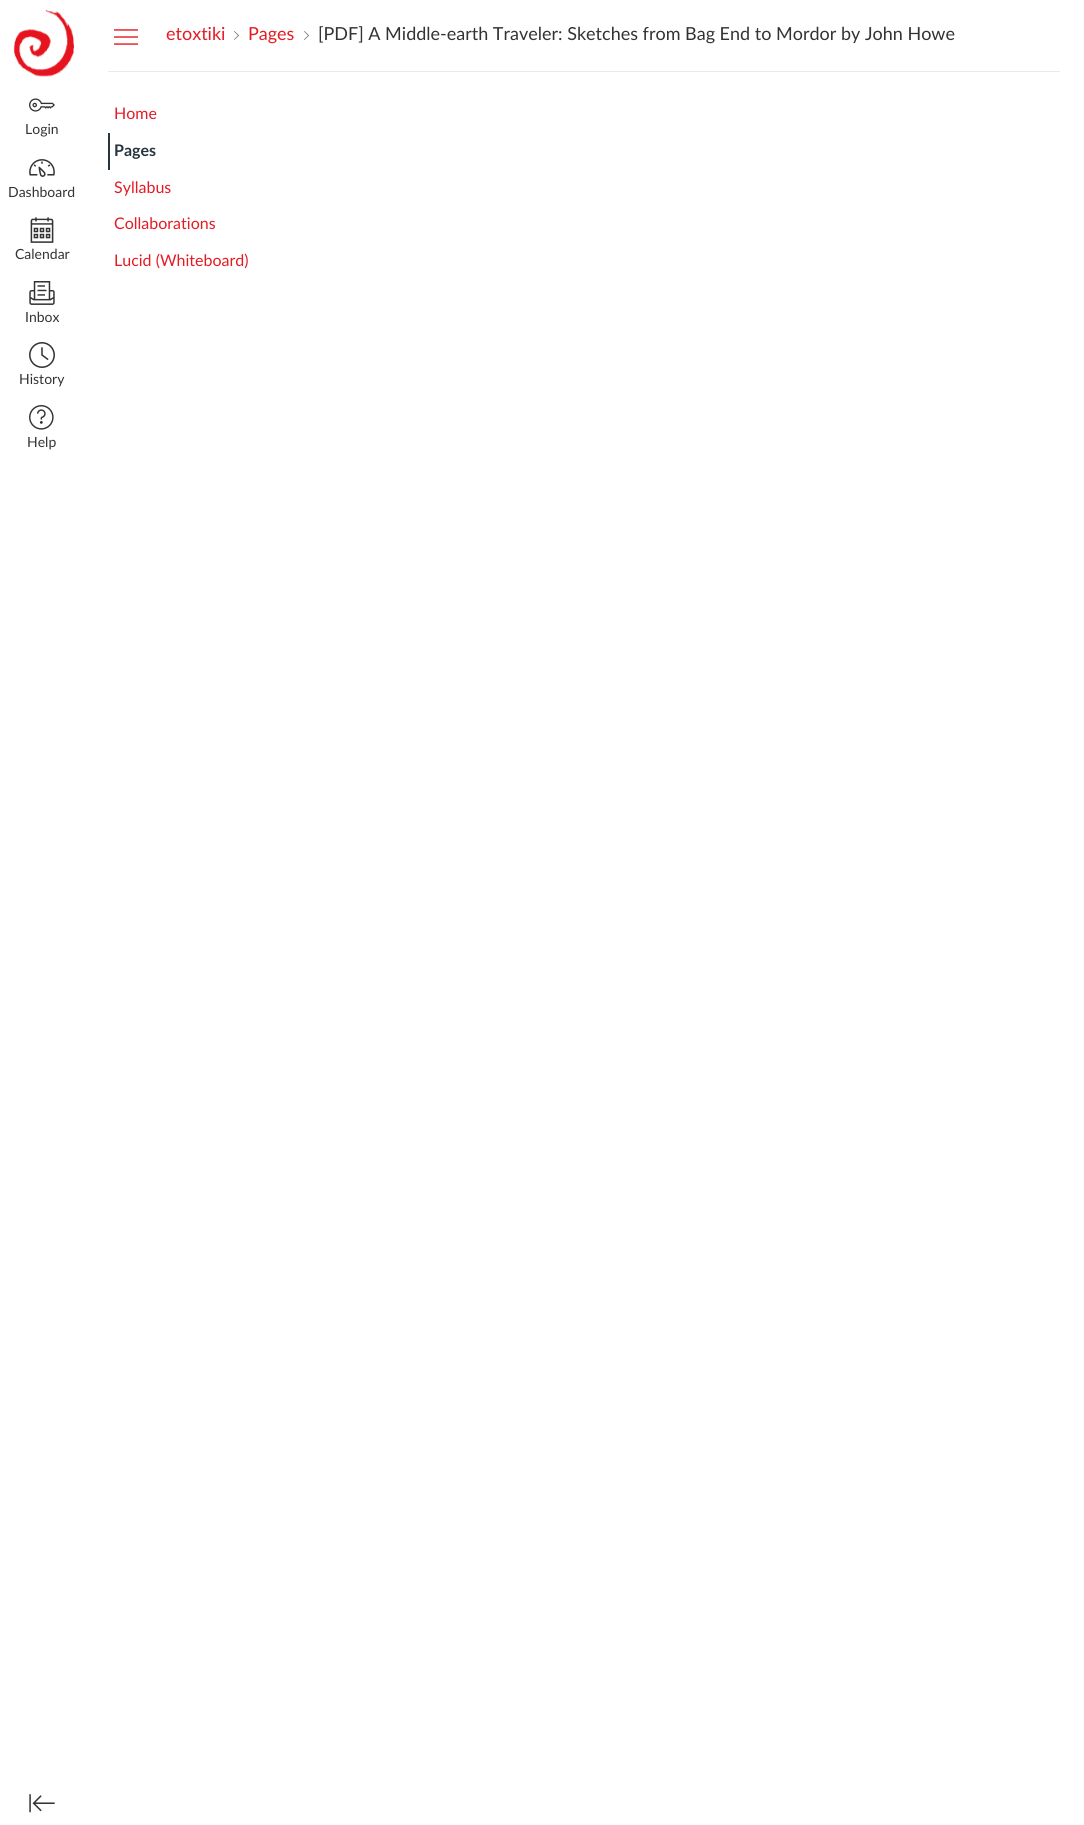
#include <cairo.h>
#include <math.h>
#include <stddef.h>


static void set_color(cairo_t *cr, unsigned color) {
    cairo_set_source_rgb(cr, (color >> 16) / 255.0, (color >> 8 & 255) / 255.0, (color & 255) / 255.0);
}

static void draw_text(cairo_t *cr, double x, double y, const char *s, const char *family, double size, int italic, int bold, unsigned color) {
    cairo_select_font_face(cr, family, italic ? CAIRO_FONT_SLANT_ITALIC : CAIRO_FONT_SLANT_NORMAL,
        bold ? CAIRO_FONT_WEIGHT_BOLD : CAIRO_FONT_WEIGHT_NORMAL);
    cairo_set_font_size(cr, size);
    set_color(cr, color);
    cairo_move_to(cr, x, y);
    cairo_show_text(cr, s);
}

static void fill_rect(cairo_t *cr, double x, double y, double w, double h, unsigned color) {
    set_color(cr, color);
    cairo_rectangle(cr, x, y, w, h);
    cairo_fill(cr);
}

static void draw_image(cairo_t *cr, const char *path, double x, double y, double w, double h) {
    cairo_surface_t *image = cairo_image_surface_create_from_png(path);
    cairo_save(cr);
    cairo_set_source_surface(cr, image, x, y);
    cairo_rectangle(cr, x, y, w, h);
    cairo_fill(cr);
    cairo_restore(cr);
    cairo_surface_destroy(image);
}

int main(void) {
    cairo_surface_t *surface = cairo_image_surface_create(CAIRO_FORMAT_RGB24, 1084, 1825);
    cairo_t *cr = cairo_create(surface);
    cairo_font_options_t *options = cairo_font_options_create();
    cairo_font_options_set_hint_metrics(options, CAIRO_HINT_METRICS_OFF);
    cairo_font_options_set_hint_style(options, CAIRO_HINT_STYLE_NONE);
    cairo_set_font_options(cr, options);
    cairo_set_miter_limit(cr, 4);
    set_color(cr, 0xFFFFFF);
    cairo_paint(cr);
    draw_image(cr, "assets/img1.png", 13, 9, 61, 68);
    draw_image(cr, "assets/img2.png", 29, 98, 26, 14);
    draw_text(cr, 25, 134, "Login", "Lato", 14, 0, 0, 0x333333);
    draw_image(cr, "assets/img3.png", 29, 159, 26, 18);
    draw_text(cr, 8, 197, "Dashboard", "Lato", 14, 0, 0, 0x333333);
    draw_image(cr, "assets/img4.png", 30, 217, 24, 26);
    draw_text(cr, 15, 259, "Calendar", "Lato", 14, 0, 0, 0x333333);
    draw_image(cr, "assets/img5.png", 29, 281, 26, 24);
    draw_text(cr, 25, 322, "Inbox", "Lato", 14, 0, 0, 0x333333);
    draw_image(cr, "assets/img6.png", 29, 342, 26, 26);
    draw_text(cr, 19, 384, "History", "Lato", 14, 0, 0, 0x333333);
    draw_image(cr, "assets/img7.png", 29, 405, 25, 25);
    draw_text(cr, 27, 447, "Help", "Lato", 14, 0, 0, 0x333333);
    draw_image(cr, "assets/img8.png", 29, 1794, 26, 19);
    fill_rect(cr, 108, 71, 952, 1, 0xE8EAEC);
    draw_image(cr, "assets/img9.png", 114, 29, 24, 16);
    draw_text(cr, 166, 40, "etoxtiki", "Lato", 18, 0, 0, 0xE51B24);
    draw_image(cr, "assets/img10.png", 234, 31, 5, 9);
    draw_text(cr, 248, 40, "Pages", "Lato", 18, 0, 0, 0xE51B24);
    draw_image(cr, "assets/img10.png", 304, 31, 5, 9);
    draw_text(cr, 318, 40, "[PDF] A Middle-earth Traveler: Sketches from Bag End to Mordor by John Howe", "Lato", 18, 0, 0, 0x333333);
    draw_text(cr, 114, 119, "Home", "Lato", 16, 0, 0, 0xE51B24);
    fill_rect(cr, 108, 133, 2, 37, 0x273540);
    draw_text(cr, 114, 156, "Pages", "Lato", 16, 0, 1, 0x273540);
    draw_text(cr, 114, 193, "Syllabus", "Lato", 16, 0, 0, 0xE51B24);
    draw_text(cr, 114, 229, "Collaborations", "Lato", 16, 0, 0, 0xE51B24);
    draw_text(cr, 114, 266, "Lucid (Whiteboard)", "Lato", 16, 0, 0, 0xE51B24);
    cairo_surface_write_to_png(surface, "output.png");
    cairo_font_options_destroy(options);
    cairo_destroy(cr);
    cairo_surface_destroy(surface);
    return 0;
}
